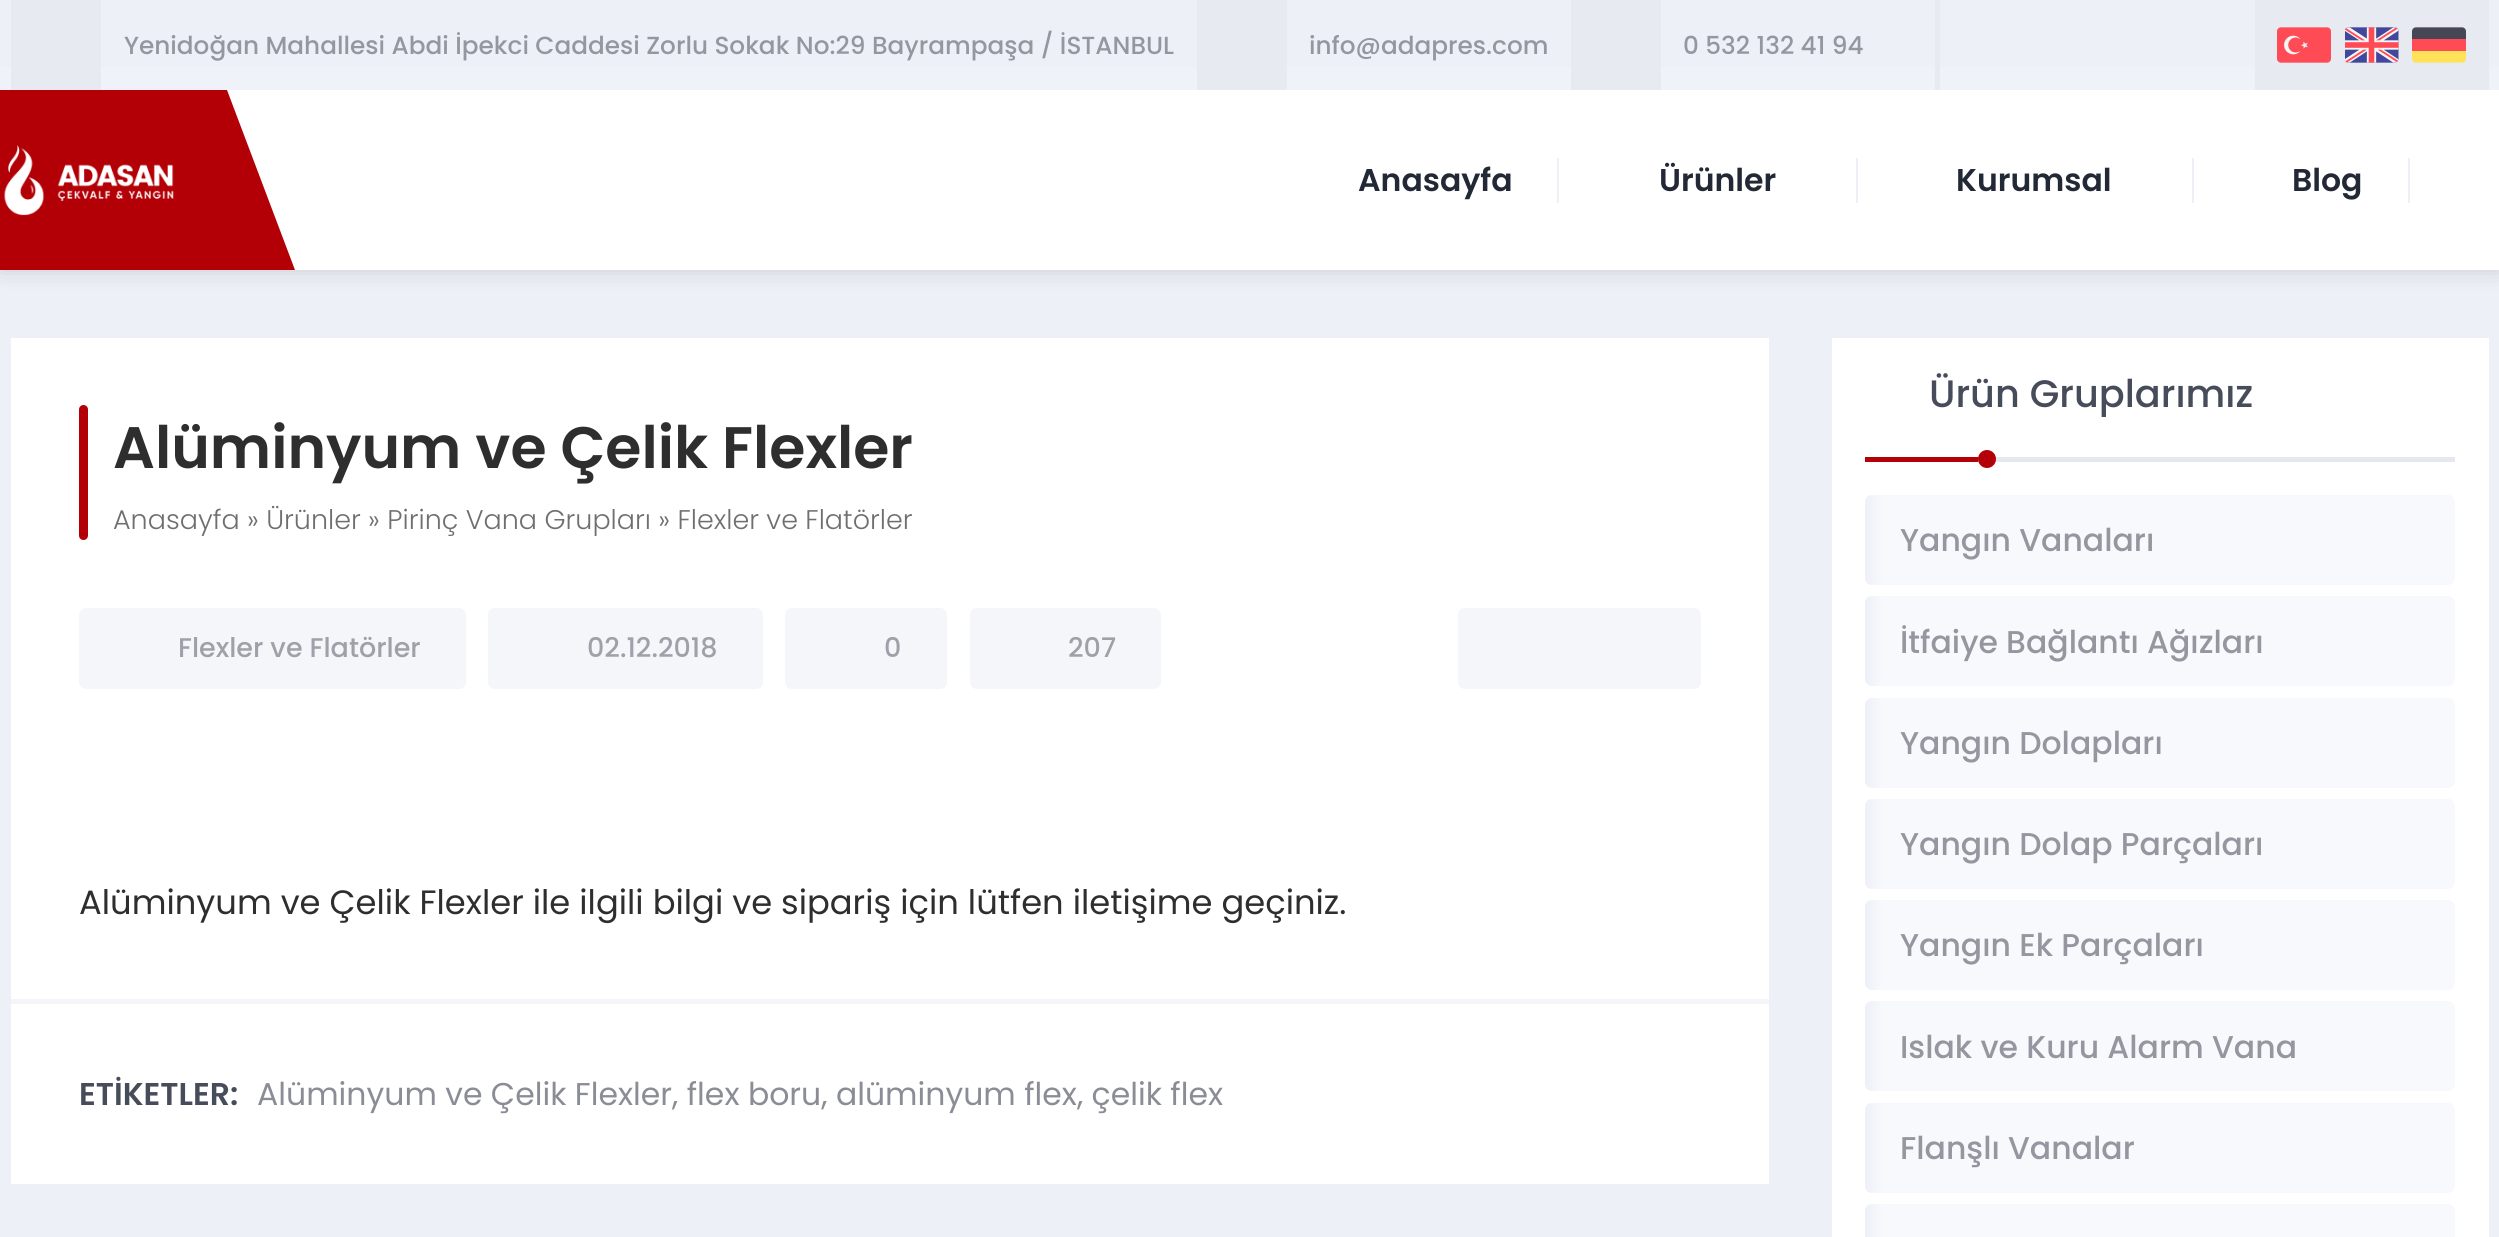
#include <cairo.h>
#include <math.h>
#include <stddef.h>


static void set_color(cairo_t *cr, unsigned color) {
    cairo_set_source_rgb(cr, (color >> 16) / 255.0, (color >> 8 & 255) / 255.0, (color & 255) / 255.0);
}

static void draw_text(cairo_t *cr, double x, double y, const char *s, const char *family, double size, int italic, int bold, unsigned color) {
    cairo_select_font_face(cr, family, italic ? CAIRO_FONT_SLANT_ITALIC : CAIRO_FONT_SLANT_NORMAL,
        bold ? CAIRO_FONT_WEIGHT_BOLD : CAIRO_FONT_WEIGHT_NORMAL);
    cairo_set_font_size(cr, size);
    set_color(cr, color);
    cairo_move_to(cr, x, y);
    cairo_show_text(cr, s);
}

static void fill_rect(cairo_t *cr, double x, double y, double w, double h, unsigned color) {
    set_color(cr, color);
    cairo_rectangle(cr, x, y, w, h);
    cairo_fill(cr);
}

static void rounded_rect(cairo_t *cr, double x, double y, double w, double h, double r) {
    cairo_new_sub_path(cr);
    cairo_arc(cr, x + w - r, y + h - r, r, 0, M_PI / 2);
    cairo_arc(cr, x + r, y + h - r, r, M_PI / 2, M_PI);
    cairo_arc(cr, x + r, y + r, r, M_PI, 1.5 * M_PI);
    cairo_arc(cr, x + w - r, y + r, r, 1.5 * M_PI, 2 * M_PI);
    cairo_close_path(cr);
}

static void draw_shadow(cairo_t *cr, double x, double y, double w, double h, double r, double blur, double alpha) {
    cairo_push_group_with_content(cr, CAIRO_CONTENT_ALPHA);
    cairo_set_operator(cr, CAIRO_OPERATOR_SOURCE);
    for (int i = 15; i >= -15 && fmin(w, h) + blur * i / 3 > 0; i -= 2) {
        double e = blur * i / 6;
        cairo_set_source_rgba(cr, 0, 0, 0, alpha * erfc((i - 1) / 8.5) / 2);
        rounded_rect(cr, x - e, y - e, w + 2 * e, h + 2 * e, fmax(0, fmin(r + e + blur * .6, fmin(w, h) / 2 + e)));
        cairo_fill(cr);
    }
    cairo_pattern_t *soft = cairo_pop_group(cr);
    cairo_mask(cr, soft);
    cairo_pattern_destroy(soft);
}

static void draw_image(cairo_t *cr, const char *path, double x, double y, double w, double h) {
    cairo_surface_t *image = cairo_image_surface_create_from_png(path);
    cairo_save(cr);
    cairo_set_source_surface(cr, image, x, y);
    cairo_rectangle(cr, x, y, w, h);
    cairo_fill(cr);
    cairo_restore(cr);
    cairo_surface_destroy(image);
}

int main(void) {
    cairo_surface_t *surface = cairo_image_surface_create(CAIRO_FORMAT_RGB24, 2499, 1237);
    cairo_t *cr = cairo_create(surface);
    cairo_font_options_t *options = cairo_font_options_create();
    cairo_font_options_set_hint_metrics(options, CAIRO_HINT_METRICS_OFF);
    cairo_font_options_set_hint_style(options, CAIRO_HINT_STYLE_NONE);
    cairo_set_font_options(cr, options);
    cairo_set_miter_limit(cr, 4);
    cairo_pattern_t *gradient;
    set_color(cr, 0xEDF0F7);
    cairo_paint(cr);
    set_color(cr, 0x000000);
    draw_shadow(cr, 0, 90, 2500, 180, 0, 11, 0.15);
    fill_rect(cr, 0, 67, 2499, 23, 0xEFF2F8);
    fill_rect(cr, 11, 0, 90, 90, 0xE7EAF0);
    draw_text(cr, 124, 54, "Yenidoğan Mahallesi Abdi İpekci Caddesi Zorlu Sokak No:29 Bayrampaşa / İSTANBUL", "Poppins Medium", 24.75, 0, 0, 0x94979F);
    fill_rect(cr, 1197, 0, 90, 90, 0xE7EAF0);
    draw_text(cr, 1309, 54, "info@adapres.com", "Poppins Medium", 24.75, 0, 0, 0x94979F);
    fill_rect(cr, 1571, 0, 90, 90, 0xE7EAF0);
    draw_text(cr, 1683, 54, "0 532 132 41 94", "Poppins Medium", 24.75, 0, 0, 0x94979F);
    fill_rect(cr, 1935, 0, 5, 90, 0xE7EAF0);
    fill_rect(cr, 2255, 0, 234, 90, 0xE7EAF0);
    draw_image(cr, "assets/img1.png", 2277, 27, 54, 36);
    draw_image(cr, "assets/img2.png", 2345, 27, 54, 36);
    draw_image(cr, "assets/img3.png", 2412, 27, 54, 36);
    fill_rect(cr, 295, 90, 2204, 180, 0xFFFFFF);
    fill_rect(cr, 0, 90, 295, 180, 0xB30006);
    draw_image(cr, "assets/img4.png", 4, 145, 170, 71);
    set_color(cr, 0xFFFFFF);
    cairo_new_path(cr);
    cairo_move_to(cr, 295, 90);
    cairo_line_to(cr, 295, 270);
    cairo_line_to(cr, 227, 90);
    cairo_close_path(cr);
    cairo_fill(cr);
    draw_text(cr, 1358, 191, "Anasayfa", "Poppins SemiBold", 31.5, 0, 0, 0x222835);
    fill_rect(cr, 1557, 158, 2, 45, 0xEDF0F7);
    draw_text(cr, 1659, 191, "Ürünler", "Poppins SemiBold", 31.5, 0, 0, 0x222835);
    fill_rect(cr, 1856, 158, 2, 45, 0xEDF0F7);
    draw_text(cr, 1956, 191, "Kurumsal", "Poppins SemiBold", 31.5, 0, 0, 0x222835);
    fill_rect(cr, 2192, 158, 2, 45, 0xEDF0F7);
    draw_text(cr, 2292, 191, "Blog", "Poppins SemiBold", 31.5, 0, 0, 0x222835);
    fill_rect(cr, 2408, 158, 2, 45, 0xEDF0F7);
    fill_rect(cr, 11, 338, 1758, 846, 0xFFFFFF);
    set_color(cr, 0xB30006);
    rounded_rect(cr, 79, 405, 9, 135, 4.5);
    cairo_fill(cr);
    draw_text(cr, 113, 468, "Alüminyum ve Çelik Flexler", "Poppins SemiBold", 58.5, 0, 0, 0x2E2E2E);
    draw_text(cr, 113, 529, "Anasayfa » Ürünler » Pirinç Vana Grupları » Flexler ve Flatörler", "Poppins Light", 27, 0, 0, 0x6F6F6F);
    set_color(cr, 0xF5F6FA);
    rounded_rect(cr, 79, 608, 387, 81, 7);
    cairo_fill(cr);
    draw_text(cr, 178, 657, "Flexler ve Flatörler", "Poppins Medium", 27, 0, 0, 0x9EA1A9);
    set_color(cr, 0xF5F6FA);
    rounded_rect(cr, 488, 608, 275, 81, 7);
    cairo_fill(cr);
    draw_text(cr, 587, 657, "02.12.2018", "Poppins Medium", 27, 0, 0, 0x9EA1A9);
    set_color(cr, 0xF5F6FA);
    rounded_rect(cr, 785, 608, 162, 81, 7);
    cairo_fill(cr);
    draw_text(cr, 884, 657, "0", "Poppins Medium", 27, 0, 0, 0x9EA1A9);
    set_color(cr, 0xF5F6FA);
    rounded_rect(cr, 970, 608, 191, 81, 7);
    cairo_fill(cr);
    draw_text(cr, 1068, 657, "207", "Poppins Medium", 27, 0, 0, 0x9EA1A9);
    set_color(cr, 0xF5F6FA);
    rounded_rect(cr, 1458, 608, 243, 81, 7);
    cairo_fill(cr);
    draw_text(cr, 79, 914, "Alüminyum ve Çelik Flexler ile ilgili bilgi ve sipariş için lütfen iletişime geçiniz.", "Poppins", 33.75, 0, 0, 0x2E2E2E);
    fill_rect(cr, 11, 999, 1758, 5, 0xF3F5FA);
    draw_text(cr, 79, 1105, "ETİKETLER:", "Poppins SemiBold", 31.5, 0, 0, 0x464C59);
    draw_text(cr, 257, 1105, "Alüminyum ve Çelik Flexler, flex boru, alüminyum flex, çelik flex", "Poppins", 31.5, 0, 0, 0x8A8D95);
    fill_rect(cr, 1832, 338, 657, 899, 0xFFFFFF);
    draw_text(cr, 1929, 407, "Ürün Gruplarımız", "Poppins Medium", 38.25, 0, 0, 0x464C59);
    fill_rect(cr, 1978, 457, 477, 5, 0xE5E8EF);
    set_color(cr, 0xB30006);
    cairo_new_path(cr);
    cairo_arc(cr, 1987, 459, 9, 0, 2 * M_PI);
    cairo_fill(cr);
    fill_rect(cr, 1865, 457, 113, 5, 0xB30006);
    set_color(cr, 0xF8F9FD);
    rounded_rect(cr, 1865, 495, 590, 90, 7);
    cairo_fill(cr);
    gradient = cairo_pattern_create_linear(1865, 540, 1883, 540);
    cairo_pattern_add_color_stop_rgba(gradient, 0, 0.929, 0.941, 0.969, 1);
    cairo_pattern_add_color_stop_rgba(gradient, 1, 0.973, 0.976, 0.992, 1);
    cairo_set_source(cr, gradient);
    cairo_pattern_destroy(gradient);
    rounded_rect(cr, 1865, 495, 18, 90, 7);
    cairo_fill(cr);
    draw_text(cr, 1900, 551, "Yangın Vanaları", "Poppins Medium", 31.5, 0, 0, 0x94979F);
    set_color(cr, 0xF8F9FD);
    rounded_rect(cr, 1865, 596, 590, 90, 7);
    cairo_fill(cr);
    gradient = cairo_pattern_create_linear(1865, 641, 1883, 641);
    cairo_pattern_add_color_stop_rgba(gradient, 0, 0.929, 0.941, 0.969, 1);
    cairo_pattern_add_color_stop_rgba(gradient, 1, 0.973, 0.976, 0.992, 1);
    cairo_set_source(cr, gradient);
    cairo_pattern_destroy(gradient);
    rounded_rect(cr, 1865, 596, 18, 90, 7);
    cairo_fill(cr);
    draw_text(cr, 1900, 653, "İtfaiye Bağlantı Ağızları", "Poppins Medium", 31.5, 0, 0, 0x94979F);
    set_color(cr, 0xF8F9FD);
    rounded_rect(cr, 1865, 698, 590, 90, 7);
    cairo_fill(cr);
    gradient = cairo_pattern_create_linear(1865, 743, 1883, 743);
    cairo_pattern_add_color_stop_rgba(gradient, 0, 0.929, 0.941, 0.969, 1);
    cairo_pattern_add_color_stop_rgba(gradient, 1, 0.973, 0.976, 0.992, 1);
    cairo_set_source(cr, gradient);
    cairo_pattern_destroy(gradient);
    rounded_rect(cr, 1865, 698, 18, 90, 7);
    cairo_fill(cr);
    draw_text(cr, 1900, 754, "Yangın Dolapları", "Poppins Medium", 31.5, 0, 0, 0x94979F);
    set_color(cr, 0xF8F9FD);
    rounded_rect(cr, 1865, 799, 590, 90, 7);
    cairo_fill(cr);
    gradient = cairo_pattern_create_linear(1865, 844, 1883, 844);
    cairo_pattern_add_color_stop_rgba(gradient, 0, 0.929, 0.941, 0.969, 1);
    cairo_pattern_add_color_stop_rgba(gradient, 1, 0.973, 0.976, 0.992, 1);
    cairo_set_source(cr, gradient);
    cairo_pattern_destroy(gradient);
    rounded_rect(cr, 1865, 799, 18, 90, 7);
    cairo_fill(cr);
    draw_text(cr, 1900, 855, "Yangın Dolap Parçaları", "Poppins Medium", 31.5, 0, 0, 0x94979F);
    set_color(cr, 0xF8F9FD);
    rounded_rect(cr, 1865, 900, 590, 90, 7);
    cairo_fill(cr);
    gradient = cairo_pattern_create_linear(1865, 945, 1883, 945);
    cairo_pattern_add_color_stop_rgba(gradient, 0, 0.929, 0.941, 0.969, 1);
    cairo_pattern_add_color_stop_rgba(gradient, 1, 0.973, 0.976, 0.992, 1);
    cairo_set_source(cr, gradient);
    cairo_pattern_destroy(gradient);
    rounded_rect(cr, 1865, 900, 18, 90, 7);
    cairo_fill(cr);
    draw_text(cr, 1900, 956, "Yangın Ek Parçaları", "Poppins Medium", 31.5, 0, 0, 0x94979F);
    set_color(cr, 0xF8F9FD);
    rounded_rect(cr, 1865, 1001, 590, 90, 7);
    cairo_fill(cr);
    gradient = cairo_pattern_create_linear(1865, 1046, 1883, 1046);
    cairo_pattern_add_color_stop_rgba(gradient, 0, 0.929, 0.941, 0.969, 1);
    cairo_pattern_add_color_stop_rgba(gradient, 1, 0.973, 0.976, 0.992, 1);
    cairo_set_source(cr, gradient);
    cairo_pattern_destroy(gradient);
    rounded_rect(cr, 1865, 1001, 18, 90, 7);
    cairo_fill(cr);
    draw_text(cr, 1900, 1058, "Islak ve Kuru Alarm Vana", "Poppins Medium", 31.5, 0, 0, 0x94979F);
    set_color(cr, 0xF8F9FD);
    rounded_rect(cr, 1865, 1103, 590, 90, 7);
    cairo_fill(cr);
    gradient = cairo_pattern_create_linear(1865, 1148, 1883, 1148);
    cairo_pattern_add_color_stop_rgba(gradient, 0, 0.929, 0.941, 0.969, 1);
    cairo_pattern_add_color_stop_rgba(gradient, 1, 0.973, 0.976, 0.992, 1);
    cairo_set_source(cr, gradient);
    cairo_pattern_destroy(gradient);
    rounded_rect(cr, 1865, 1103, 18, 90, 7);
    cairo_fill(cr);
    draw_text(cr, 1900, 1159, "Flanşlı Vanalar", "Poppins Medium", 31.5, 0, 0, 0x94979F);
    set_color(cr, 0xF8F9FD);
    rounded_rect(cr, 1865, 1204, 590, 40, 7);
    cairo_fill(cr);
    gradient = cairo_pattern_create_linear(1865, 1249, 1883, 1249);
    cairo_pattern_add_color_stop_rgba(gradient, 0, 0.929, 0.941, 0.969, 1);
    cairo_pattern_add_color_stop_rgba(gradient, 1, 0.973, 0.976, 0.992, 1);
    cairo_set_source(cr, gradient);
    cairo_pattern_destroy(gradient);
    rounded_rect(cr, 1865, 1204, 18, 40, 7);
    cairo_fill(cr);
    cairo_surface_write_to_png(surface, "output.png");
    cairo_font_options_destroy(options);
    cairo_destroy(cr);
    cairo_surface_destroy(surface);
    return 0;
}
